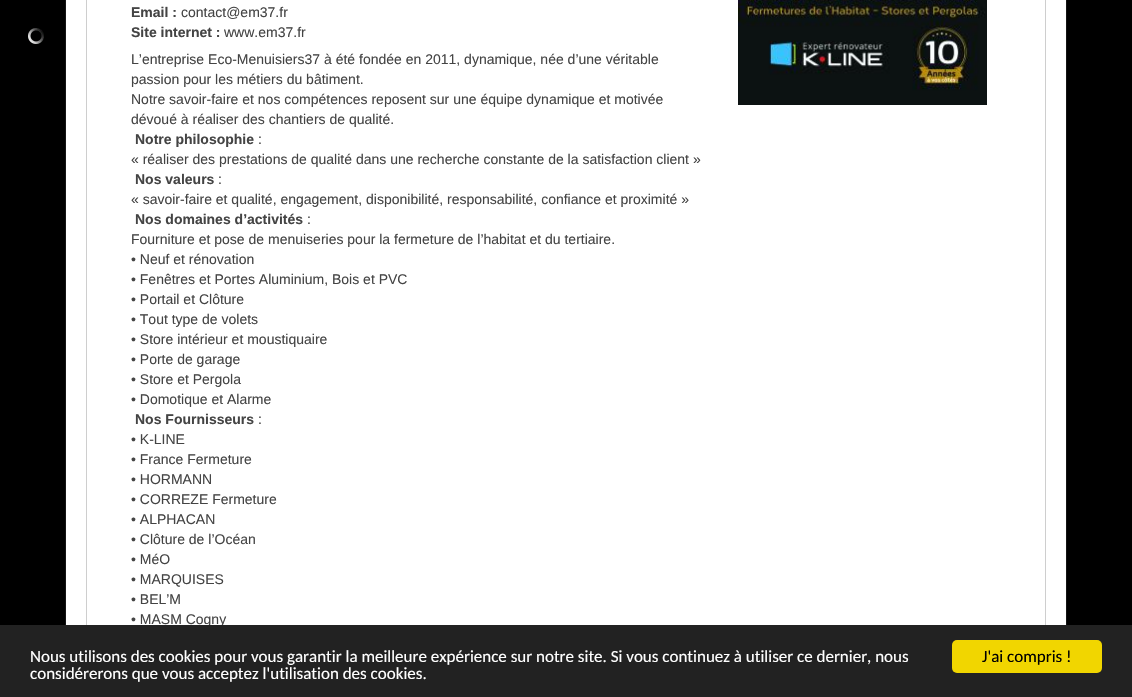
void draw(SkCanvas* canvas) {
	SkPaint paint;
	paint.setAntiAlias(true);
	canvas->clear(0xff000000);
	canvas->drawImageRect(SkImages::DeferredFromEncodedData(SkData::MakeFromFileName("img1.png")), SkRect::MakeXYWH(28, 28, 16, 16), SkSamplingOptions());
	paint.setColor(0xffffffff);
	canvas->drawRect(SkRect::MakeXYWH(66, 0, 1000, 625), paint);
	paint.setColor(0xff151515);
	canvas->drawRect(SkRect::MakeXYWH(1066, 0, 1, 625), paint);
	canvas->drawRect(SkRect::MakeXYWH(65, 0, 1, 625), paint);
	paint.setStroke(true);
	paint.setStrokeWidth(1);
	paint.setColor(0xffcecece);
	canvas->drawRect(SkRect::MakeXYWH(86.5, -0.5, 959, 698), paint);
	SkFont f1(fontMgr->matchFamilyStyle("Liberation Sans", SkFontStyle::Bold()), 14);
	f1.setSubpixel(true);
	paint.setStroke(false);
	paint.setColor(0xff444444);
	canvas->drawString("Email :", 131, 17, f1, paint);
	SkFont f2(fontMgr->matchFamilyStyle("Liberation Sans", SkFontStyle::Normal()), 14);
	f2.setSubpixel(true);
	canvas->drawString("contact@em37.fr", 181, 17, f2, paint);
	canvas->drawString("Site internet :", 131, 37, f1, paint);
	canvas->drawString("www.em37.fr", 224, 37, f2, paint);
	canvas->drawString("L’entreprise Eco-Menuisiers37 à été fondée en 2011, dynamique, née d’une véritable", 131, 64, f2, paint);
	canvas->drawString("passion pour les métiers du bâtiment.", 131, 84, f2, paint);
	canvas->drawString("Notre savoir-faire et nos compétences reposent sur une équipe dynamique et motivée", 131, 104, f2, paint);
	canvas->drawString("dévoué à réaliser des chantiers de qualité.", 131, 124, f2, paint);
	canvas->drawString("Notre philosophie", 135, 144, f1, paint);
	canvas->drawString(":", 258, 144, f2, paint);
	canvas->drawString("« réaliser des prestations de qualité dans une recherche constante de la satisfaction client »", 131, 164, f2, paint);
	canvas->drawString("Nos valeurs", 135, 184, f1, paint);
	canvas->drawString(":", 218, 184, f2, paint);
	canvas->drawString("« savoir-faire et qualité, engagement, disponibilité, responsabilité, confiance et proximité »", 131, 204, f2, paint);
	canvas->drawString("Nos domaines d’activités", 135, 224, f1, paint);
	canvas->drawString(":", 307, 224, f2, paint);
	canvas->drawString("Fourniture et pose de menuiseries pour la fermeture de l’habitat et du tertiaire.", 131, 244, f2, paint);
	canvas->drawString("• Neuf et rénovation", 131, 264, f2, paint);
	canvas->drawString("• Fenêtres et Portes Aluminium, Bois et PVC", 131, 284, f2, paint);
	canvas->drawString("• Portail et Clôture", 131, 304, f2, paint);
	canvas->drawString("• Tout type de volets", 131, 324, f2, paint);
	canvas->drawString("• Store intérieur et moustiquaire", 131, 344, f2, paint);
	canvas->drawString("• Porte de garage", 131, 364, f2, paint);
	canvas->drawString("• Store et Pergola", 131, 384, f2, paint);
	canvas->drawString("• Domotique et Alarme", 131, 404, f2, paint);
	canvas->drawString("Nos Fournisseurs", 135, 424, f1, paint);
	canvas->drawString(":", 258, 424, f2, paint);
	canvas->drawString("• K-LINE", 131, 444, f2, paint);
	canvas->drawString("• France Fermeture", 131, 464, f2, paint);
	canvas->drawString("• HORMANN", 131, 484, f2, paint);
	canvas->drawString("• CORREZE Fermeture", 131, 504, f2, paint);
	canvas->drawString("• ALPHACAN", 131, 524, f2, paint);
	canvas->drawString("• Clôture de l’Océan", 131, 544, f2, paint);
	canvas->drawString("• MéO", 131, 564, f2, paint);
	canvas->drawString("• MARQUISES", 131, 584, f2, paint);
	canvas->drawString("• BEL’M", 131, 604, f2, paint);
	canvas->drawString("• MASM Cogny", 131, 624, f2, paint);
	canvas->drawImageRect(SkImages::DeferredFromEncodedData(SkData::MakeFromFileName("img2.png")), SkRect::MakeXYWH(738, 0, 249, 105), SkSamplingOptions());
	paint.setColor(0xff222222);
	canvas->drawRect(SkRect::MakeXYWH(0, 625, 1132, 72), paint);
	SkFont f3(fontMgr->matchFamilyStyle("Carlito", SkFontStyle::Normal()), 17);
	f3.setSubpixel(true);
	paint.setColor(0xffffffff);
	canvas->drawString("Nous utilisons des cookies pour vous garantir la meilleure expérience sur notre site. Si vous continuez à utiliser ce dernier, nous", 30, 662, f3, paint);
	canvas->drawString("considérerons que vous acceptez l'utilisation des cookies.", 30, 679, f3, paint);
	paint.setColor(0xfff1d600);
	canvas->drawRoundRect(SkRect::MakeXYWH(952, 640, 150, 33), 5, 5, paint);
	paint.setColor(0xff000000);
	canvas->drawString("J'ai compris !", 982, 662, f3, paint);
}
